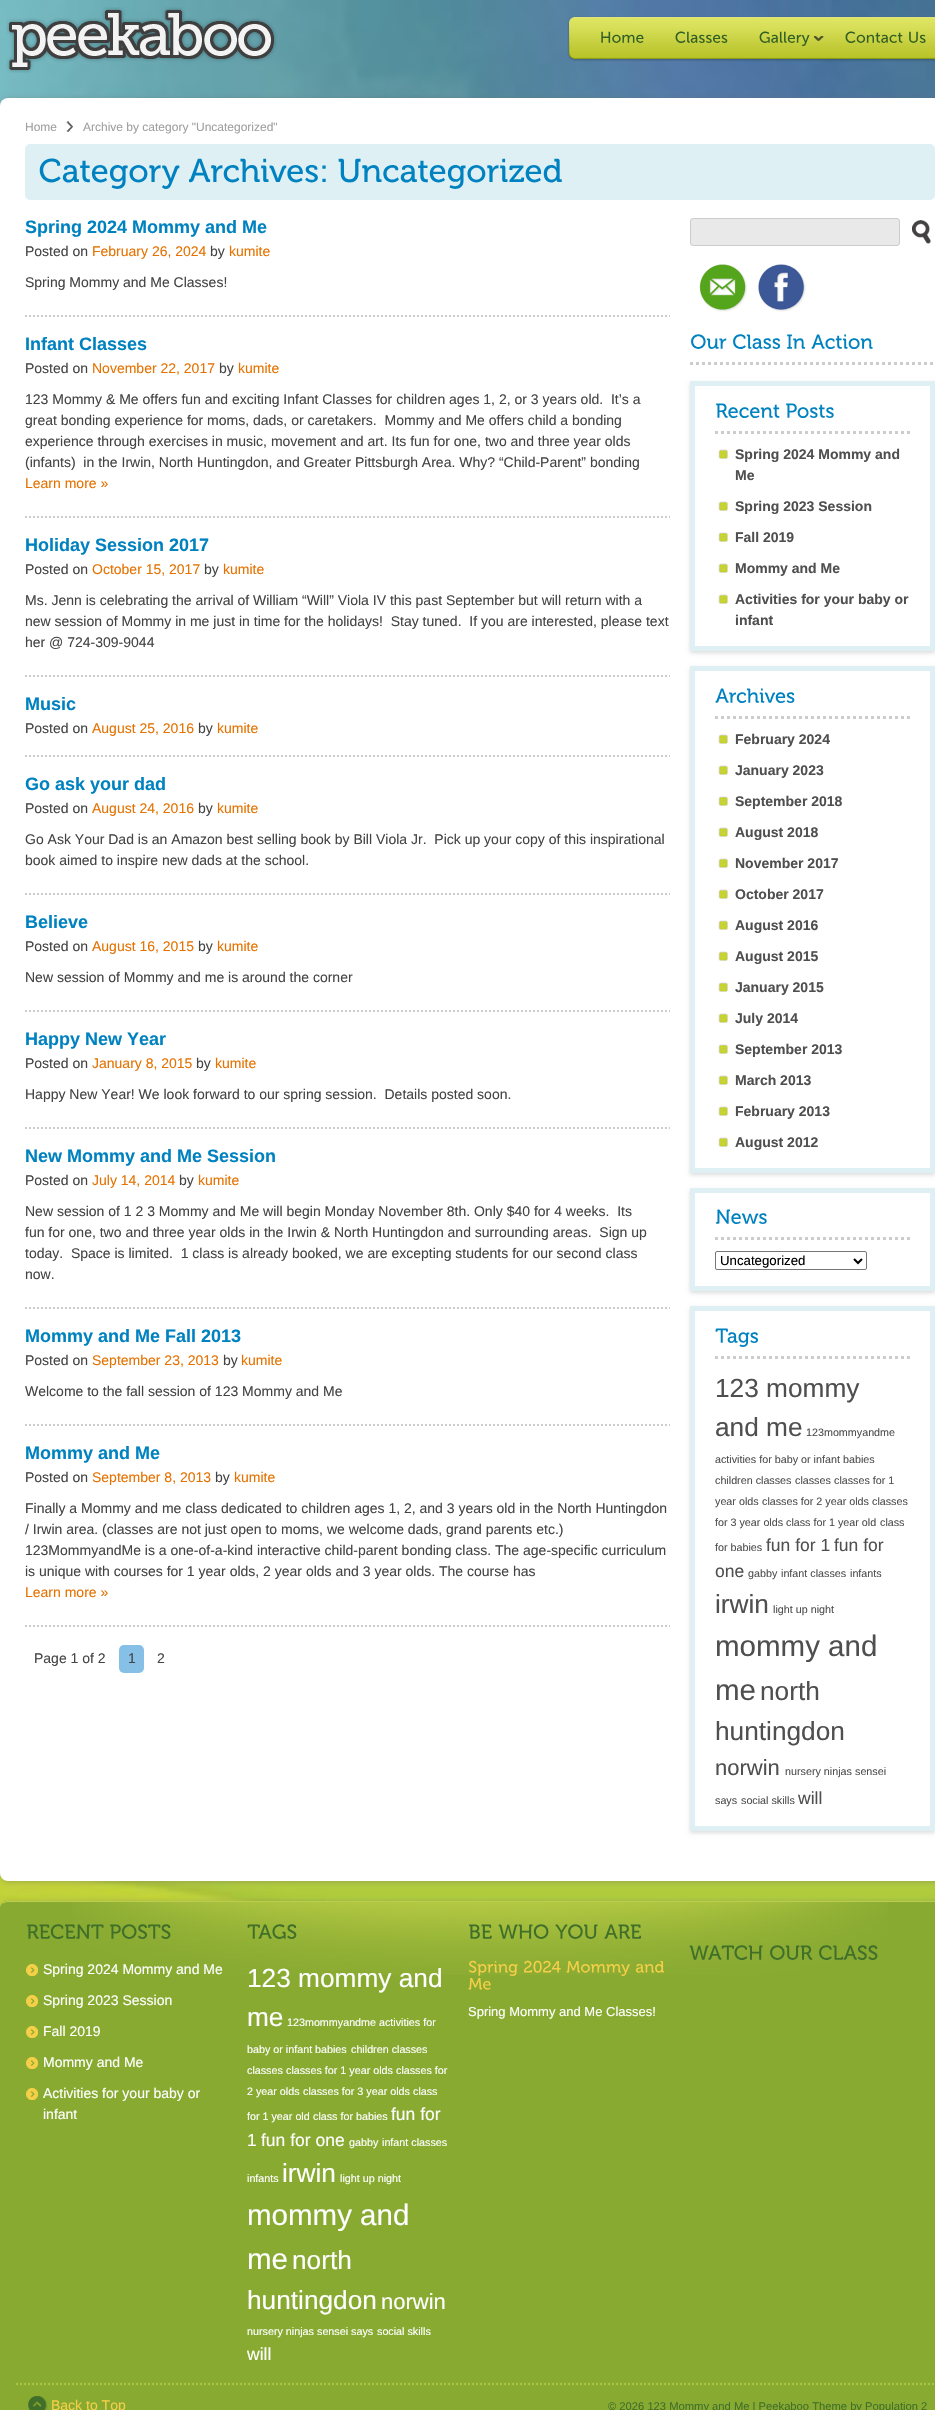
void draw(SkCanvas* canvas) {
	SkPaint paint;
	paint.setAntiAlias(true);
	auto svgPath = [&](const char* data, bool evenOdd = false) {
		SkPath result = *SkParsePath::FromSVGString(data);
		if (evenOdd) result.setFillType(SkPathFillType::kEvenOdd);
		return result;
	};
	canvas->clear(0xffffffff);
	canvas->drawImageRect(SkImages::DeferredFromEncodedData(SkData::MakeFromFileName("img1.png")), SkRect::MakeXYWH(0, 0, 935, 1909), SkSamplingOptions());
	canvas->drawImageRect(SkImages::DeferredFromEncodedData(SkData::MakeFromFileName("img2.png")), SkRect::MakeXYWH(6, 7, 271, 66), SkSamplingOptions());
	canvas->drawImageRect(SkImages::DeferredFromEncodedData(SkData::MakeFromFileName("img3.png")), SkRect::MakeXYWH(567, 16, 18, 46), SkSamplingOptions());
	canvas->drawImageRect(SkImages::DeferredFromEncodedData(SkData::MakeFromFileName("img4.png")), SkRect::MakeXYWH(585, 16, 350, 46), SkSamplingOptions());
	canvas->drawImageRect(SkImages::DeferredFromEncodedData(SkData::MakeFromFileName("img5.png")), SkRect::MakeXYWH(601, 31, 43, 12), SkSamplingOptions());
	canvas->drawImageRect(SkImages::DeferredFromEncodedData(SkData::MakeFromFileName("img6.png")), SkRect::MakeXYWH(675, 31, 53, 12), SkSamplingOptions());
	canvas->drawImageRect(SkImages::DeferredFromEncodedData(SkData::MakeFromFileName("img7.png")), SkRect::MakeXYWH(759, 31, 51, 15), SkSamplingOptions());
	canvas->drawImageRect(SkImages::DeferredFromEncodedData(SkData::MakeFromFileName("img8.png")), SkRect::MakeXYWH(814, 36, 10, 5), SkSamplingOptions());
	canvas->drawImageRect(SkImages::DeferredFromEncodedData(SkData::MakeFromFileName("img9.png")), SkRect::MakeXYWH(845, 31, 58, 12), SkSamplingOptions());
	canvas->drawImageRect(SkImages::DeferredFromEncodedData(SkData::MakeFromFileName("img10.png")), SkRect::MakeXYWH(909, 31, 17, 12), SkSamplingOptions());
	paint.setColor(0x66666666);
	paint.setMaskFilter(SkMaskFilter::MakeBlur(kNormal_SkBlurStyle, 3));
	canvas->drawRoundRect(SkRect::MakeXYWH(1, 99, 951, 1783), 8, 8, paint);
	paint.setMaskFilter(nullptr);
	paint.setColor(0xffffffff);
	canvas->drawRoundRect(SkRect::MakeXYWH(0, 98, 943, 1783), 8, 8, paint);
	SkFont f1(fontMgr->matchFamilyStyle("Liberation Sans", SkFontStyle::Normal()), 12);
	f1.setSubpixel(true);
	paint.setColor(0xff9f9f9f);
	canvas->drawString("Home", 25, 131, f1, paint);
	canvas->drawImageRect(SkImages::DeferredFromEncodedData(SkData::MakeFromFileName("img11.png")), SkRect::MakeXYWH(66, 121, 7, 11), SkSamplingOptions());
	canvas->drawString("Archive by category \"Uncategorized\"", 83, 131, f1, paint);
	paint.setColor(0xffdff0f5);
	canvas->drawRoundRect(SkRect::MakeXYWH(25, 144, 910, 56), 5, 5, paint);
	canvas->drawImageRect(SkImages::DeferredFromEncodedData(SkData::MakeFromFileName("img12.png")), SkRect::MakeXYWH(39, 158, 141, 31), SkSamplingOptions());
	canvas->drawImageRect(SkImages::DeferredFromEncodedData(SkData::MakeFromFileName("img13.png")), SkRect::MakeXYWH(189, 158, 137, 25), SkSamplingOptions());
	canvas->drawImageRect(SkImages::DeferredFromEncodedData(SkData::MakeFromFileName("img14.png")), SkRect::MakeXYWH(338, 158, 224, 31), SkSamplingOptions());
	SkFont f2(fontMgr->matchFamilyStyle("Liberation Sans", SkFontStyle::Bold()), 18);
	f2.setSubpixel(true);
	paint.setColor(0xff0082c0);
	canvas->drawString("Spring 2024 Mommy and Me", 25, 233, f2, paint);
	SkFont f3(fontMgr->matchFamilyStyle("Liberation Sans", SkFontStyle::Normal()), 14);
	f3.setSubpixel(true);
	paint.setColor(0xff444444);
	canvas->drawString("Posted on", 25, 256, f3, paint);
	paint.setColor(0xffe57200);
	canvas->drawString("February 26, 2024", 92, 256, f3, paint);
	paint.setColor(0xff444444);
	canvas->drawString("by", 210, 256, f3, paint);
	paint.setColor(0xffe57200);
	canvas->drawString("kumite", 229, 256, f3, paint);
	paint.setColor(0xff444444);
	canvas->drawString("Spring Mommy and Me Classes!", 25, 287, f3, paint);
	paint.setStroke(true);
	paint.setStrokeWidth(2);
	paint.setColor(0xffcccccc);
	paint.setPathEffect(SkDashPathEffect::Make({{2, 2}}, 0));
	canvas->drawPath(svgPath("M25 316H670"), paint);
	paint.setPathEffect(nullptr);
	paint.setStroke(false);
	paint.setColor(0xff0082c0);
	canvas->drawString("Infant Classes", 25, 350, f2, paint);
	paint.setColor(0xff444444);
	canvas->drawString("Posted on", 25, 373, f3, paint);
	paint.setColor(0xffe57200);
	canvas->drawString("November 22, 2017", 92, 373, f3, paint);
	paint.setColor(0xff444444);
	canvas->drawString("by", 219, 373, f3, paint);
	paint.setColor(0xffe57200);
	canvas->drawString("kumite", 238, 373, f3, paint);
	paint.setColor(0xff444444);
	canvas->drawString("123 Mommy & Me offers fun and exciting Infant Classes for children ages 1, 2, or 3 years old.  It’s a", 25, 404, f3, paint);
	canvas->drawString("great bonding experience for moms, dads, or caretakers.  Mommy and Me offers child a bonding", 25, 425, f3, paint);
	canvas->drawString("experience through exercises in music, movement and art. Its fun for one, two and three year olds", 25, 446, f3, paint);
	canvas->drawString("(infants)  in the Irwin, North Huntingdon, and Greater Pittsburgh Area. Why? “Child-Parent” bonding", 25, 467, f3, paint);
	paint.setColor(0xffe57200);
	canvas->drawString("Learn more »", 25, 488, f3, paint);
	paint.setStroke(true);
	paint.setColor(0xffcccccc);
	paint.setPathEffect(SkDashPathEffect::Make({{2, 2}}, 0));
	canvas->drawPath(svgPath("M25 517H670"), paint);
	paint.setPathEffect(nullptr);
	paint.setStroke(false);
	paint.setColor(0xff0082c0);
	canvas->drawString("Holiday Session 2017", 25, 551, f2, paint);
	paint.setColor(0xff444444);
	canvas->drawString("Posted on", 25, 574, f3, paint);
	paint.setColor(0xffe57200);
	canvas->drawString("October 15, 2017", 92, 574, f3, paint);
	paint.setColor(0xff444444);
	canvas->drawString("by", 204, 574, f3, paint);
	paint.setColor(0xffe57200);
	canvas->drawString("kumite", 223, 574, f3, paint);
	paint.setColor(0xff444444);
	canvas->drawString("Ms. Jenn is celebrating the arrival of William “Will” Viola IV this past September but will return with a", 25, 605, f3, paint);
	canvas->drawString("new session of Mommy in me just in time for the holidays!  Stay tuned.  If you are interested, please text", 25, 626, f3, paint);
	canvas->drawString("her @ 724-309-9044", 25, 647, f3, paint);
	paint.setStroke(true);
	paint.setColor(0xffcccccc);
	paint.setPathEffect(SkDashPathEffect::Make({{2, 2}}, 0));
	canvas->drawPath(svgPath("M25 676H670"), paint);
	paint.setPathEffect(nullptr);
	paint.setStroke(false);
	paint.setColor(0xff0082c0);
	canvas->drawString("Music", 25, 710, f2, paint);
	paint.setColor(0xff444444);
	canvas->drawString("Posted on", 25, 733, f3, paint);
	paint.setColor(0xffe57200);
	canvas->drawString("August 25, 2016", 92, 733, f3, paint);
	paint.setColor(0xff444444);
	canvas->drawString("by", 198, 733, f3, paint);
	paint.setColor(0xffe57200);
	canvas->drawString("kumite", 217, 733, f3, paint);
	paint.setStroke(true);
	paint.setColor(0xffcccccc);
	paint.setPathEffect(SkDashPathEffect::Make({{2, 2}}, 0));
	canvas->drawPath(svgPath("M25 756H670"), paint);
	paint.setPathEffect(nullptr);
	paint.setStroke(false);
	paint.setColor(0xff0082c0);
	canvas->drawString("Go ask your dad", 25, 790, f2, paint);
	paint.setColor(0xff444444);
	canvas->drawString("Posted on", 25, 813, f3, paint);
	paint.setColor(0xffe57200);
	canvas->drawString("August 24, 2016", 92, 813, f3, paint);
	paint.setColor(0xff444444);
	canvas->drawString("by", 198, 813, f3, paint);
	paint.setColor(0xffe57200);
	canvas->drawString("kumite", 217, 813, f3, paint);
	paint.setColor(0xff444444);
	canvas->drawString("Go Ask Your Dad is an Amazon best selling book by Bill Viola Jr.  Pick up your copy of this inspirational", 25, 844, f3, paint);
	canvas->drawString("book aimed to inspire new dads at the school.", 25, 865, f3, paint);
	paint.setStroke(true);
	paint.setColor(0xffcccccc);
	paint.setPathEffect(SkDashPathEffect::Make({{2, 2}}, 0));
	canvas->drawPath(svgPath("M25 894H670"), paint);
	paint.setPathEffect(nullptr);
	paint.setStroke(false);
	paint.setColor(0xff0082c0);
	canvas->drawString("Believe", 25, 928, f2, paint);
	paint.setColor(0xff444444);
	canvas->drawString("Posted on", 25, 951, f3, paint);
	paint.setColor(0xffe57200);
	canvas->drawString("August 16, 2015", 92, 951, f3, paint);
	paint.setColor(0xff444444);
	canvas->drawString("by", 198, 951, f3, paint);
	paint.setColor(0xffe57200);
	canvas->drawString("kumite", 217, 951, f3, paint);
	paint.setColor(0xff444444);
	canvas->drawString("New session of Mommy and me is around the corner", 25, 982, f3, paint);
	paint.setStroke(true);
	paint.setColor(0xffcccccc);
	paint.setPathEffect(SkDashPathEffect::Make({{2, 2}}, 0));
	canvas->drawPath(svgPath("M25 1011H670"), paint);
	paint.setPathEffect(nullptr);
	paint.setStroke(false);
	paint.setColor(0xff0082c0);
	canvas->drawString("Happy New Year", 25, 1045, f2, paint);
	paint.setColor(0xff444444);
	canvas->drawString("Posted on", 25, 1068, f3, paint);
	paint.setColor(0xffe57200);
	canvas->drawString("January 8, 2015", 92, 1068, f3, paint);
	paint.setColor(0xff444444);
	canvas->drawString("by", 196, 1068, f3, paint);
	paint.setColor(0xffe57200);
	canvas->drawString("kumite", 215, 1068, f3, paint);
	paint.setColor(0xff444444);
	canvas->drawString("Happy New Year! We look forward to our spring session.  Details posted soon.", 25, 1099, f3, paint);
	paint.setStroke(true);
	paint.setColor(0xffcccccc);
	paint.setPathEffect(SkDashPathEffect::Make({{2, 2}}, 0));
	canvas->drawPath(svgPath("M25 1128H670"), paint);
	paint.setPathEffect(nullptr);
	paint.setStroke(false);
	paint.setColor(0xff0082c0);
	canvas->drawString("New Mommy and Me Session", 25, 1162, f2, paint);
	paint.setColor(0xff444444);
	canvas->drawString("Posted on", 25, 1185, f3, paint);
	paint.setColor(0xffe57200);
	canvas->drawString("July 14, 2014", 92, 1185, f3, paint);
	paint.setColor(0xff444444);
	canvas->drawString("by", 179, 1185, f3, paint);
	paint.setColor(0xffe57200);
	canvas->drawString("kumite", 198, 1185, f3, paint);
	paint.setColor(0xff444444);
	canvas->drawString("New session of 1 2 3 Mommy and Me will begin Monday November 8th. Only $40 for 4 weeks.  Its", 25, 1216, f3, paint);
	canvas->drawString("fun for one, two and three year olds in the Irwin & North Huntingdon and surrounding areas.  Sign up", 25, 1237, f3, paint);
	canvas->drawString("today.  Space is limited.  1 class is already booked, we are excepting students for our second class", 25, 1258, f3, paint);
	canvas->drawString("now.", 25, 1279, f3, paint);
	paint.setStroke(true);
	paint.setColor(0xffcccccc);
	paint.setPathEffect(SkDashPathEffect::Make({{2, 2}}, 0));
	canvas->drawPath(svgPath("M25 1308H670"), paint);
	paint.setPathEffect(nullptr);
	paint.setStroke(false);
	paint.setColor(0xff0082c0);
	canvas->drawString("Mommy and Me Fall 2013", 25, 1342, f2, paint);
	paint.setColor(0xff444444);
	canvas->drawString("Posted on", 25, 1365, f3, paint);
	paint.setColor(0xffe57200);
	canvas->drawString("September 23, 2013", 92, 1365, f3, paint);
	paint.setColor(0xff444444);
	canvas->drawString("by", 223, 1365, f3, paint);
	paint.setColor(0xffe57200);
	canvas->drawString("kumite", 241, 1365, f3, paint);
	paint.setColor(0xff444444);
	canvas->drawString("Welcome to the fall session of 123 Mommy and Me", 25, 1396, f3, paint);
	paint.setStroke(true);
	paint.setColor(0xffcccccc);
	paint.setPathEffect(SkDashPathEffect::Make({{2, 2}}, 0));
	canvas->drawPath(svgPath("M25 1425H670"), paint);
	paint.setPathEffect(nullptr);
	paint.setStroke(false);
	paint.setColor(0xff0082c0);
	canvas->drawString("Mommy and Me", 25, 1459, f2, paint);
	paint.setColor(0xff444444);
	canvas->drawString("Posted on", 25, 1482, f3, paint);
	paint.setColor(0xffe57200);
	canvas->drawString("September 8, 2013", 92, 1482, f3, paint);
	paint.setColor(0xff444444);
	canvas->drawString("by", 215, 1482, f3, paint);
	paint.setColor(0xffe57200);
	canvas->drawString("kumite", 234, 1482, f3, paint);
	paint.setColor(0xff444444);
	canvas->drawString("Finally a Mommy and me class dedicated to children ages 1, 2, and 3 years old in the North Huntingdon", 25, 1513, f3, paint);
	canvas->drawString("/ Irwin area. (classes are not just open to moms, we welcome dads, grand parents etc.)", 25, 1534, f3, paint);
	canvas->drawString("123MommyandMe is a one-of-a-kind interactive child-parent bonding class. The age-specific curriculum", 25, 1555, f3, paint);
	canvas->drawString("is unique with courses for 1 year olds, 2 year olds and 3 year olds. The course has", 25, 1576, f3, paint);
	paint.setColor(0xffe57200);
	canvas->drawString("Learn more »", 25, 1597, f3, paint);
	paint.setStroke(true);
	paint.setColor(0xffcccccc);
	paint.setPathEffect(SkDashPathEffect::Make({{2, 2}}, 0));
	canvas->drawPath(svgPath("M25 1626H670"), paint);
	paint.setPathEffect(nullptr);
	paint.setStroke(false);
	paint.setColor(0xff444444);
	canvas->drawString("Page 1 of 2", 34, 1663, f3, paint);
	paint.setColor(0xff87c0e6);
	canvas->drawRoundRect(SkRect::MakeXYWH(119, 1645, 25, 28), 5, 5, paint);
	paint.setColor(0xff444444);
	canvas->drawString("1", 128, 1663, f3, paint);
	canvas->drawString("2", 157, 1663, f3, paint);
	paint.setColor(0xffe9e9e9);
	canvas->drawRoundRect(SkRect::MakeXYWH(690.5, 218.5, 209, 27), 2.5, 2.5, paint);
	paint.setStroke(true);
	paint.setStrokeWidth(1);
	paint.setColor(0xffcccccc);
	canvas->drawRoundRect(SkRect::MakeXYWH(690.5, 218.5, 209, 27), 2.5, 2.5, paint);
	canvas->drawImageRect(SkImages::DeferredFromEncodedData(SkData::MakeFromFileName("img15.png")), SkRect::MakeXYWH(912, 220, 19, 24), SkSamplingOptions());
	canvas->drawImageRect(SkImages::DeferredFromEncodedData(SkData::MakeFromFileName("img16.png")), SkRect::MakeXYWH(699, 264, 48, 48), SkSamplingOptions());
	canvas->drawImageRect(SkImages::DeferredFromEncodedData(SkData::MakeFromFileName("img17.png")), SkRect::MakeXYWH(758, 264, 48, 48), SkSamplingOptions());
	paint.setStrokeWidth(3);
	paint.setPathEffect(SkDashPathEffect::Make({{3, 3}}, 0));
	canvas->drawPath(svgPath("M690 363.5H935"), paint);
	paint.setPathEffect(nullptr);
	canvas->drawImageRect(SkImages::DeferredFromEncodedData(SkData::MakeFromFileName("img18.png")), SkRect::MakeXYWH(691, 334, 36, 15), SkSamplingOptions());
	canvas->drawImageRect(SkImages::DeferredFromEncodedData(SkData::MakeFromFileName("img19.png")), SkRect::MakeXYWH(733, 334, 48, 15), SkSamplingOptions());
	canvas->drawImageRect(SkImages::DeferredFromEncodedData(SkData::MakeFromFileName("img20.png")), SkRect::MakeXYWH(787, 334, 18, 15), SkSamplingOptions());
	canvas->drawImageRect(SkImages::DeferredFromEncodedData(SkData::MakeFromFileName("img21.png")), SkRect::MakeXYWH(811, 334, 62, 15), SkSamplingOptions());
	canvas->save();
	canvas->clipPath(svgPath("M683 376H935V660H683ZM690 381H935V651H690Z", true), true);
	paint.setStroke(false);
	paint.setColor(0xffdddddd);
	paint.setMaskFilter(SkMaskFilter::MakeBlur(kNormal_SkBlurStyle, 2));
	canvas->drawRect(SkRect::MakeXYWH(690, 383, 245, 270), paint);
	paint.setMaskFilter(nullptr);
	canvas->restore();
	paint.setStroke(true);
	paint.setStrokeWidth(5);
	paint.setColor(0xffdff0f5);
	canvas->drawRect(SkRect::MakeXYWH(692.5, 383.5, 240, 265), paint);
	paint.setStrokeWidth(3);
	paint.setColor(0xffcccccc);
	paint.setPathEffect(SkDashPathEffect::Make({{3, 3}}, 0));
	canvas->drawPath(svgPath("M715 432.5H910"), paint);
	paint.setPathEffect(nullptr);
	canvas->drawImageRect(SkImages::DeferredFromEncodedData(SkData::MakeFromFileName("img22.png")), SkRect::MakeXYWH(716, 403, 64, 15), SkSamplingOptions());
	canvas->drawImageRect(SkImages::DeferredFromEncodedData(SkData::MakeFromFileName("img23.png")), SkRect::MakeXYWH(786, 403, 48, 15), SkSamplingOptions());
	canvas->drawImageRect(SkImages::DeferredFromEncodedData(SkData::MakeFromFileName("img24.png")), SkRect::MakeXYWH(718, 449, 10, 10), SkSamplingOptions());
	SkFont f4(fontMgr->matchFamilyStyle("Liberation Sans", SkFontStyle::Bold()), 14);
	f4.setSubpixel(true);
	paint.setStroke(false);
	paint.setColor(0xff4f4f4f);
	canvas->drawString("Spring 2024 Mommy and", 735, 459, f4, paint);
	canvas->drawString("Me", 735, 480, f4, paint);
	canvas->drawImageRect(SkImages::DeferredFromEncodedData(SkData::MakeFromFileName("img24.png")), SkRect::MakeXYWH(718, 501, 10, 10), SkSamplingOptions());
	canvas->drawString("Spring 2023 Session", 735, 511, f4, paint);
	canvas->drawImageRect(SkImages::DeferredFromEncodedData(SkData::MakeFromFileName("img24.png")), SkRect::MakeXYWH(718, 532, 10, 10), SkSamplingOptions());
	canvas->drawString("Fall 2019", 735, 542, f4, paint);
	canvas->drawImageRect(SkImages::DeferredFromEncodedData(SkData::MakeFromFileName("img24.png")), SkRect::MakeXYWH(718, 563, 10, 10), SkSamplingOptions());
	canvas->drawString("Mommy and Me", 735, 573, f4, paint);
	canvas->drawImageRect(SkImages::DeferredFromEncodedData(SkData::MakeFromFileName("img24.png")), SkRect::MakeXYWH(718, 594, 10, 10), SkSamplingOptions());
	canvas->drawString("Activities for your baby or", 735, 604, f4, paint);
	canvas->drawString("infant", 735, 625, f4, paint);
	canvas->save();
	canvas->clipPath(svgPath("M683 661H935V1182H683ZM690 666H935V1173H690Z", true), true);
	paint.setColor(0xffdddddd);
	paint.setMaskFilter(SkMaskFilter::MakeBlur(kNormal_SkBlurStyle, 2));
	canvas->drawRect(SkRect::MakeXYWH(690, 668, 245, 507), paint);
	paint.setMaskFilter(nullptr);
	canvas->restore();
	paint.setStroke(true);
	paint.setStrokeWidth(5);
	paint.setColor(0xffdff0f5);
	canvas->drawRect(SkRect::MakeXYWH(692.5, 668.5, 240, 502), paint);
	paint.setStrokeWidth(3);
	paint.setColor(0xffcccccc);
	paint.setPathEffect(SkDashPathEffect::Make({{3, 3}}, 0));
	canvas->drawPath(svgPath("M715 717.5H910"), paint);
	paint.setPathEffect(nullptr);
	canvas->drawImageRect(SkImages::DeferredFromEncodedData(SkData::MakeFromFileName("img25.png")), SkRect::MakeXYWH(715, 688, 80, 15), SkSamplingOptions());
	canvas->drawImageRect(SkImages::DeferredFromEncodedData(SkData::MakeFromFileName("img24.png")), SkRect::MakeXYWH(718, 734, 10, 10), SkSamplingOptions());
	paint.setStroke(false);
	paint.setColor(0xff4f4f4f);
	canvas->drawString("February 2024", 735, 744, f4, paint);
	canvas->drawImageRect(SkImages::DeferredFromEncodedData(SkData::MakeFromFileName("img24.png")), SkRect::MakeXYWH(718, 765, 10, 10), SkSamplingOptions());
	canvas->drawString("January 2023", 735, 775, f4, paint);
	canvas->drawImageRect(SkImages::DeferredFromEncodedData(SkData::MakeFromFileName("img24.png")), SkRect::MakeXYWH(718, 796, 10, 10), SkSamplingOptions());
	canvas->drawString("September 2018", 735, 806, f4, paint);
	canvas->drawImageRect(SkImages::DeferredFromEncodedData(SkData::MakeFromFileName("img24.png")), SkRect::MakeXYWH(718, 827, 10, 10), SkSamplingOptions());
	canvas->drawString("August 2018", 735, 837, f4, paint);
	canvas->drawImageRect(SkImages::DeferredFromEncodedData(SkData::MakeFromFileName("img24.png")), SkRect::MakeXYWH(718, 858, 10, 10), SkSamplingOptions());
	canvas->drawString("November 2017", 735, 868, f4, paint);
	canvas->drawImageRect(SkImages::DeferredFromEncodedData(SkData::MakeFromFileName("img24.png")), SkRect::MakeXYWH(718, 889, 10, 10), SkSamplingOptions());
	canvas->drawString("October 2017", 735, 899, f4, paint);
	canvas->drawImageRect(SkImages::DeferredFromEncodedData(SkData::MakeFromFileName("img24.png")), SkRect::MakeXYWH(718, 920, 10, 10), SkSamplingOptions());
	canvas->drawString("August 2016", 735, 930, f4, paint);
	canvas->drawImageRect(SkImages::DeferredFromEncodedData(SkData::MakeFromFileName("img24.png")), SkRect::MakeXYWH(718, 951, 10, 10), SkSamplingOptions());
	canvas->drawString("August 2015", 735, 961, f4, paint);
	canvas->drawImageRect(SkImages::DeferredFromEncodedData(SkData::MakeFromFileName("img24.png")), SkRect::MakeXYWH(718, 982, 10, 10), SkSamplingOptions());
	canvas->drawString("January 2015", 735, 992, f4, paint);
	canvas->drawImageRect(SkImages::DeferredFromEncodedData(SkData::MakeFromFileName("img24.png")), SkRect::MakeXYWH(718, 1013, 10, 10), SkSamplingOptions());
	canvas->drawString("July 2014", 735, 1023, f4, paint);
	canvas->drawImageRect(SkImages::DeferredFromEncodedData(SkData::MakeFromFileName("img24.png")), SkRect::MakeXYWH(718, 1044, 10, 10), SkSamplingOptions());
	canvas->drawString("September 2013", 735, 1054, f4, paint);
	canvas->drawImageRect(SkImages::DeferredFromEncodedData(SkData::MakeFromFileName("img24.png")), SkRect::MakeXYWH(718, 1075, 10, 10), SkSamplingOptions());
	canvas->drawString("March 2013", 735, 1085, f4, paint);
	canvas->drawImageRect(SkImages::DeferredFromEncodedData(SkData::MakeFromFileName("img24.png")), SkRect::MakeXYWH(718, 1106, 10, 10), SkSamplingOptions());
	canvas->drawString("February 2013", 735, 1116, f4, paint);
	canvas->drawImageRect(SkImages::DeferredFromEncodedData(SkData::MakeFromFileName("img24.png")), SkRect::MakeXYWH(718, 1137, 10, 10), SkSamplingOptions());
	canvas->drawString("August 2012", 735, 1147, f4, paint);
	canvas->save();
	canvas->clipPath(svgPath("M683 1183H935V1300H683ZM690 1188H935V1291H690Z", true), true);
	paint.setColor(0xffdddddd);
	paint.setMaskFilter(SkMaskFilter::MakeBlur(kNormal_SkBlurStyle, 2));
	canvas->drawRect(SkRect::MakeXYWH(690, 1190, 245, 103), paint);
	paint.setMaskFilter(nullptr);
	canvas->restore();
	paint.setStroke(true);
	paint.setStrokeWidth(5);
	paint.setColor(0xffdff0f5);
	canvas->drawRect(SkRect::MakeXYWH(692.5, 1190.5, 240, 98), paint);
	paint.setStrokeWidth(3);
	paint.setColor(0xffcccccc);
	paint.setPathEffect(SkDashPathEffect::Make({{3, 3}}, 0));
	canvas->drawPath(svgPath("M715 1238.5H910"), paint);
	paint.setPathEffect(nullptr);
	canvas->drawImageRect(SkImages::DeferredFromEncodedData(SkData::MakeFromFileName("img26.png")), SkRect::MakeXYWH(716, 1209, 51, 15), SkSamplingOptions());
	paint.setStrokeWidth(1);
	paint.setColor(0xff767676);
	canvas->drawRoundRect(SkRect::MakeXYWH(715.5, 1251.5, 151, 18), 1.5, 1.5, paint);
	paint.setStrokeWidth(2);
	paint.setColor(0xff000000);
	canvas->drawPath(svgPath("M854 1259L858 1263L862 1259"), paint);
	SkFont f5(fontMgr->matchFamilyStyle("Liberation Sans", SkFontStyle::Normal()), 13.25);
	f5.setSubpixel(true);
	paint.setStroke(false);
	canvas->drawString("Uncategorized", 720, 1265, f5, paint);
	canvas->save();
	canvas->clipPath(svgPath("M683 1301H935V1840H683ZM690 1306H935V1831H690Z", true), true);
	paint.setColor(0xffdddddd);
	paint.setMaskFilter(SkMaskFilter::MakeBlur(kNormal_SkBlurStyle, 2));
	canvas->drawRect(SkRect::MakeXYWH(690, 1308, 245, 525), paint);
	paint.setMaskFilter(nullptr);
	canvas->restore();
	paint.setStroke(true);
	paint.setStrokeWidth(5);
	paint.setColor(0xffdff0f5);
	canvas->drawRect(SkRect::MakeXYWH(692.5, 1308.5, 240, 520), paint);
	paint.setStrokeWidth(3);
	paint.setColor(0xffcccccc);
	paint.setPathEffect(SkDashPathEffect::Make({{3, 3}}, 0));
	canvas->drawPath(svgPath("M715 1357.5H910"), paint);
	paint.setPathEffect(nullptr);
	canvas->drawImageRect(SkImages::DeferredFromEncodedData(SkData::MakeFromFileName("img27.png")), SkRect::MakeXYWH(715, 1328, 43, 19), SkSamplingOptions());
	SkFont f6(fontMgr->matchFamilyStyle("Liberation Sans", SkFontStyle::Normal()), 26.25);
	f6.setSubpixel(true);
	paint.setStroke(false);
	paint.setColor(0xff4f4f4f);
	canvas->drawString("123 mommy", 715, 1397, f6, paint);
	canvas->drawString("and me", 715, 1436, f6, paint);
	SkFont f7(fontMgr->matchFamilyStyle("Liberation Sans", SkFontStyle::Normal()), 10.75);
	f7.setSubpixel(true);
	canvas->drawString("123mommyandme", 806, 1436, f7, paint);
	canvas->drawString("activities for baby or infant", 715, 1463, f7, paint);
	canvas->drawString("babies", 843, 1463, f7, paint);
	canvas->drawString("children classes", 715, 1484, f7, paint);
	canvas->drawString("classes", 795, 1484, f7, paint);
	canvas->drawString("classes for 1", 834, 1484, f7, paint);
	canvas->drawString("year olds", 715, 1505, f7, paint);
	canvas->drawString("classes for 2 year olds", 762, 1505, f7, paint);
	canvas->drawString("classes", 872, 1505, f7, paint);
	canvas->drawString("for 3 year olds", 715, 1526, f7, paint);
	canvas->drawString("class for 1 year old", 786, 1526, f7, paint);
	canvas->drawString("class", 880, 1526, f7, paint);
	canvas->drawString("for babies", 715, 1551, f7, paint);
	SkFont f8(fontMgr->matchFamilyStyle("Liberation Sans", SkFontStyle::Normal()), 17.5);
	f8.setSubpixel(true);
	canvas->drawString("fun for 1", 766, 1551, f8, paint);
	canvas->drawString("fun for", 834, 1551, f8, paint);
	canvas->drawString("one", 715, 1577, f8, paint);
	canvas->drawString("gabby", 748, 1577, f7, paint);
	canvas->drawString("infant classes", 781, 1577, f7, paint);
	canvas->drawString("infants", 850, 1577, f7, paint);
	canvas->drawString("irwin", 715, 1613, f6, paint);
	canvas->drawString("light up night", 773, 1613, f7, paint);
	SkFont f9(fontMgr->matchFamilyStyle("Liberation Sans", SkFontStyle::Normal()), 29.5);
	f9.setSubpixel(true);
	canvas->drawString("mommy and", 715, 1656, f9, paint);
	canvas->drawString("me", 715, 1700, f9, paint);
	canvas->drawString("north", 760, 1700, f6, paint);
	canvas->drawString("huntingdon", 715, 1740, f6, paint);
	SkFont f10(fontMgr->matchFamilyStyle("Liberation Sans", SkFontStyle::Normal()), 22);
	f10.setSubpixel(true);
	canvas->drawString("norwin", 715, 1775, f10, paint);
	canvas->drawString("nursery ninjas", 785, 1775, f7, paint);
	canvas->drawString("sensei", 855, 1775, f7, paint);
	canvas->drawString("says", 715, 1804, f7, paint);
	canvas->drawString("social skills", 741, 1804, f7, paint);
	canvas->drawString("will", 798, 1804, f8, paint);
	paint.setColor(0x66666666);
	paint.setMaskFilter(SkMaskFilter::MakeBlur(kNormal_SkBlurStyle, 3));
	canvas->drawRoundRect(SkRect::MakeXYWH(1, 1902, 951, 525), 8, 8, paint);
	paint.setMaskFilter(nullptr);
	paint.setColor(0xff88aa31);
	canvas->drawRoundRect(SkRect::MakeXYWH(0, 1901, 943, 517), 8, 8, paint);
	canvas->drawImageRect(SkImages::DeferredFromEncodedData(SkData::MakeFromFileName("img28.png")), SkRect::MakeXYWH(72, 1902, 816, 73), SkSamplingOptions());
	paint.setStroke(true);
	paint.setStrokeWidth(1);
	paint.setColor(0xffbccf4d);
	canvas->drawPath(svgPath("M2.5 1903.5C4 1902.5 6 1901.5 8 1901.5H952C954 1901.5 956 1902.5 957.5 1903.5"), paint);
	paint.setColor(0xff88aa31);
	canvas->drawPath(svgPath("M2.5 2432.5C1.5 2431 .5 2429 .5 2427V1909C.5 1907 1.5 1905 2.5 1903.5"), paint);
	canvas->drawImageRect(SkImages::DeferredFromEncodedData(SkData::MakeFromFileName("img29.png")), SkRect::MakeXYWH(689, 1945, 74, 15), SkSamplingOptions());
	canvas->drawImageRect(SkImages::DeferredFromEncodedData(SkData::MakeFromFileName("img30.png")), SkRect::MakeXYWH(770, 1945, 43, 15), SkSamplingOptions());
	canvas->drawImageRect(SkImages::DeferredFromEncodedData(SkData::MakeFromFileName("img31.png")), SkRect::MakeXYWH(819, 1945, 59, 15), SkSamplingOptions());
	canvas->drawImageRect(SkImages::DeferredFromEncodedData(SkData::MakeFromFileName("img32.png")), SkRect::MakeXYWH(27, 1924, 77, 15), SkSamplingOptions());
	canvas->drawImageRect(SkImages::DeferredFromEncodedData(SkData::MakeFromFileName("img33.png")), SkRect::MakeXYWH(110, 1924, 61, 15), SkSamplingOptions());
	canvas->drawImageRect(SkImages::DeferredFromEncodedData(SkData::MakeFromFileName("img34.png")), SkRect::MakeXYWH(26, 1964, 12, 12), SkSamplingOptions());
	paint.setStroke(false);
	paint.setColor(0xffffffff);
	canvas->drawString("Spring 2024 Mommy and Me", 43, 1974, f3, paint);
	canvas->drawImageRect(SkImages::DeferredFromEncodedData(SkData::MakeFromFileName("img34.png")), SkRect::MakeXYWH(26, 1995, 12, 12), SkSamplingOptions());
	canvas->drawString("Spring 2023 Session", 43, 2005, f3, paint);
	canvas->drawImageRect(SkImages::DeferredFromEncodedData(SkData::MakeFromFileName("img34.png")), SkRect::MakeXYWH(26, 2026, 12, 12), SkSamplingOptions());
	canvas->drawString("Fall 2019", 43, 2036, f3, paint);
	canvas->drawImageRect(SkImages::DeferredFromEncodedData(SkData::MakeFromFileName("img34.png")), SkRect::MakeXYWH(26, 2057, 12, 12), SkSamplingOptions());
	canvas->drawString("Mommy and Me", 43, 2067, f3, paint);
	canvas->drawImageRect(SkImages::DeferredFromEncodedData(SkData::MakeFromFileName("img34.png")), SkRect::MakeXYWH(26, 2088, 12, 12), SkSamplingOptions());
	canvas->drawString("Activities for your baby or", 43, 2098, f3, paint);
	canvas->drawString("infant", 43, 2119, f3, paint);
	canvas->drawImageRect(SkImages::DeferredFromEncodedData(SkData::MakeFromFileName("img35.png")), SkRect::MakeXYWH(247, 1924, 50, 15), SkSamplingOptions());
	canvas->drawString("123 mommy and", 247, 1987, f6, paint);
	canvas->drawString("me", 247, 2026, f6, paint);
	canvas->drawString("123mommyandme", 287, 2026, f7, paint);
	canvas->drawString("activities for", 379, 2026, f7, paint);
	canvas->drawString("baby or infant", 247, 2053, f7, paint);
	canvas->drawString("babies", 315, 2053, f7, paint);
	canvas->drawString("children classes", 351, 2053, f7, paint);
	canvas->drawString("classes", 247, 2074, f7, paint);
	canvas->drawString("classes for 1 year olds", 286, 2074, f7, paint);
	canvas->drawString("classes for", 396, 2074, f7, paint);
	canvas->drawString("2 year olds", 247, 2095, f7, paint);
	canvas->drawString("classes for 3 year olds", 303, 2095, f7, paint);
	canvas->drawString("class", 413, 2095, f7, paint);
	canvas->drawString("for 1 year old", 247, 2120, f7, paint);
	canvas->drawString("class for babies", 313, 2120, f7, paint);
	canvas->drawString("fun for", 391, 2120, f8, paint);
	canvas->drawString("1", 247, 2146, f8, paint);
	canvas->drawString("fun for one", 261, 2146, f8, paint);
	canvas->drawString("gabby", 349, 2146, f7, paint);
	canvas->drawString("infant classes", 382, 2146, f7, paint);
	canvas->drawString("infants", 247, 2182, f7, paint);
	canvas->drawString("irwin", 282, 2182, f6, paint);
	canvas->drawString("light up night", 340, 2182, f7, paint);
	canvas->drawString("mommy and", 247, 2225, f9, paint);
	canvas->drawString("me", 247, 2269, f9, paint);
	canvas->drawString("north", 292, 2269, f6, paint);
	canvas->drawString("huntingdon", 247, 2309, f6, paint);
	canvas->drawString("norwin", 381, 2309, f10, paint);
	canvas->drawString("nursery ninjas", 247, 2335, f7, paint);
	canvas->drawString("sensei says", 317, 2335, f7, paint);
	canvas->drawString("social skills", 377, 2335, f7, paint);
	canvas->drawString("will", 247, 2360, f8, paint);
	canvas->drawImageRect(SkImages::DeferredFromEncodedData(SkData::MakeFromFileName("img36.png")), SkRect::MakeXYWH(469, 1924, 23, 15), SkSamplingOptions());
	canvas->drawImageRect(SkImages::DeferredFromEncodedData(SkData::MakeFromFileName("img37.png")), SkRect::MakeXYWH(498, 1924, 51, 15), SkSamplingOptions());
	canvas->drawImageRect(SkImages::DeferredFromEncodedData(SkData::MakeFromFileName("img38.png")), SkRect::MakeXYWH(555, 1924, 43, 15), SkSamplingOptions());
	canvas->drawImageRect(SkImages::DeferredFromEncodedData(SkData::MakeFromFileName("img39.png")), SkRect::MakeXYWH(604, 1924, 38, 15), SkSamplingOptions());
	canvas->drawImageRect(SkImages::DeferredFromEncodedData(SkData::MakeFromFileName("img40.png")), SkRect::MakeXYWH(469, 1960, 49, 16), SkSamplingOptions());
	canvas->drawImageRect(SkImages::DeferredFromEncodedData(SkData::MakeFromFileName("img41.png")), SkRect::MakeXYWH(524, 1960, 37, 13), SkSamplingOptions());
	canvas->drawImageRect(SkImages::DeferredFromEncodedData(SkData::MakeFromFileName("img42.png")), SkRect::MakeXYWH(566, 1961, 64, 15), SkSamplingOptions());
	canvas->drawImageRect(SkImages::DeferredFromEncodedData(SkData::MakeFromFileName("img43.png")), SkRect::MakeXYWH(635, 1961, 30, 12), SkSamplingOptions());
	canvas->drawImageRect(SkImages::DeferredFromEncodedData(SkData::MakeFromFileName("img44.png")), SkRect::MakeXYWH(468, 1978, 23, 12), SkSamplingOptions());
	SkFont f11(fontMgr->matchFamilyStyle("Liberation Sans", SkFontStyle::Normal()), 13);
	f11.setSubpixel(true);
	canvas->drawString("Spring Mommy and Me Classes!", 468, 2016, f11, paint);
	paint.setStroke(true);
	paint.setStrokeWidth(2);
	paint.setColor(0xffadc442);
	paint.setPathEffect(SkDashPathEffect::Make({{2, 2}}, 0));
	canvas->drawPath(svgPath("M16 2384H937"), paint);
	paint.setPathEffect(nullptr);
	canvas->drawImageRect(SkImages::DeferredFromEncodedData(SkData::MakeFromFileName("img45.png")), SkRect::MakeXYWH(28, 2396, 20, 14), SkSamplingOptions());
	paint.setStroke(false);
	paint.setColor(0xfff5cf47);
	canvas->drawString("Back to Top", 51, 2410, f3, paint);
	SkFont f12(fontMgr->matchFamilyStyle("Liberation Sans", SkFontStyle::Normal()), 11.2);
	f12.setSubpixel(true);
	paint.setColor(0xff406f29);
	canvas->drawString("© 2026 123 Mommy and Me | Peekaboo Theme by Population 2", 608, 2410, f12, paint);
}
